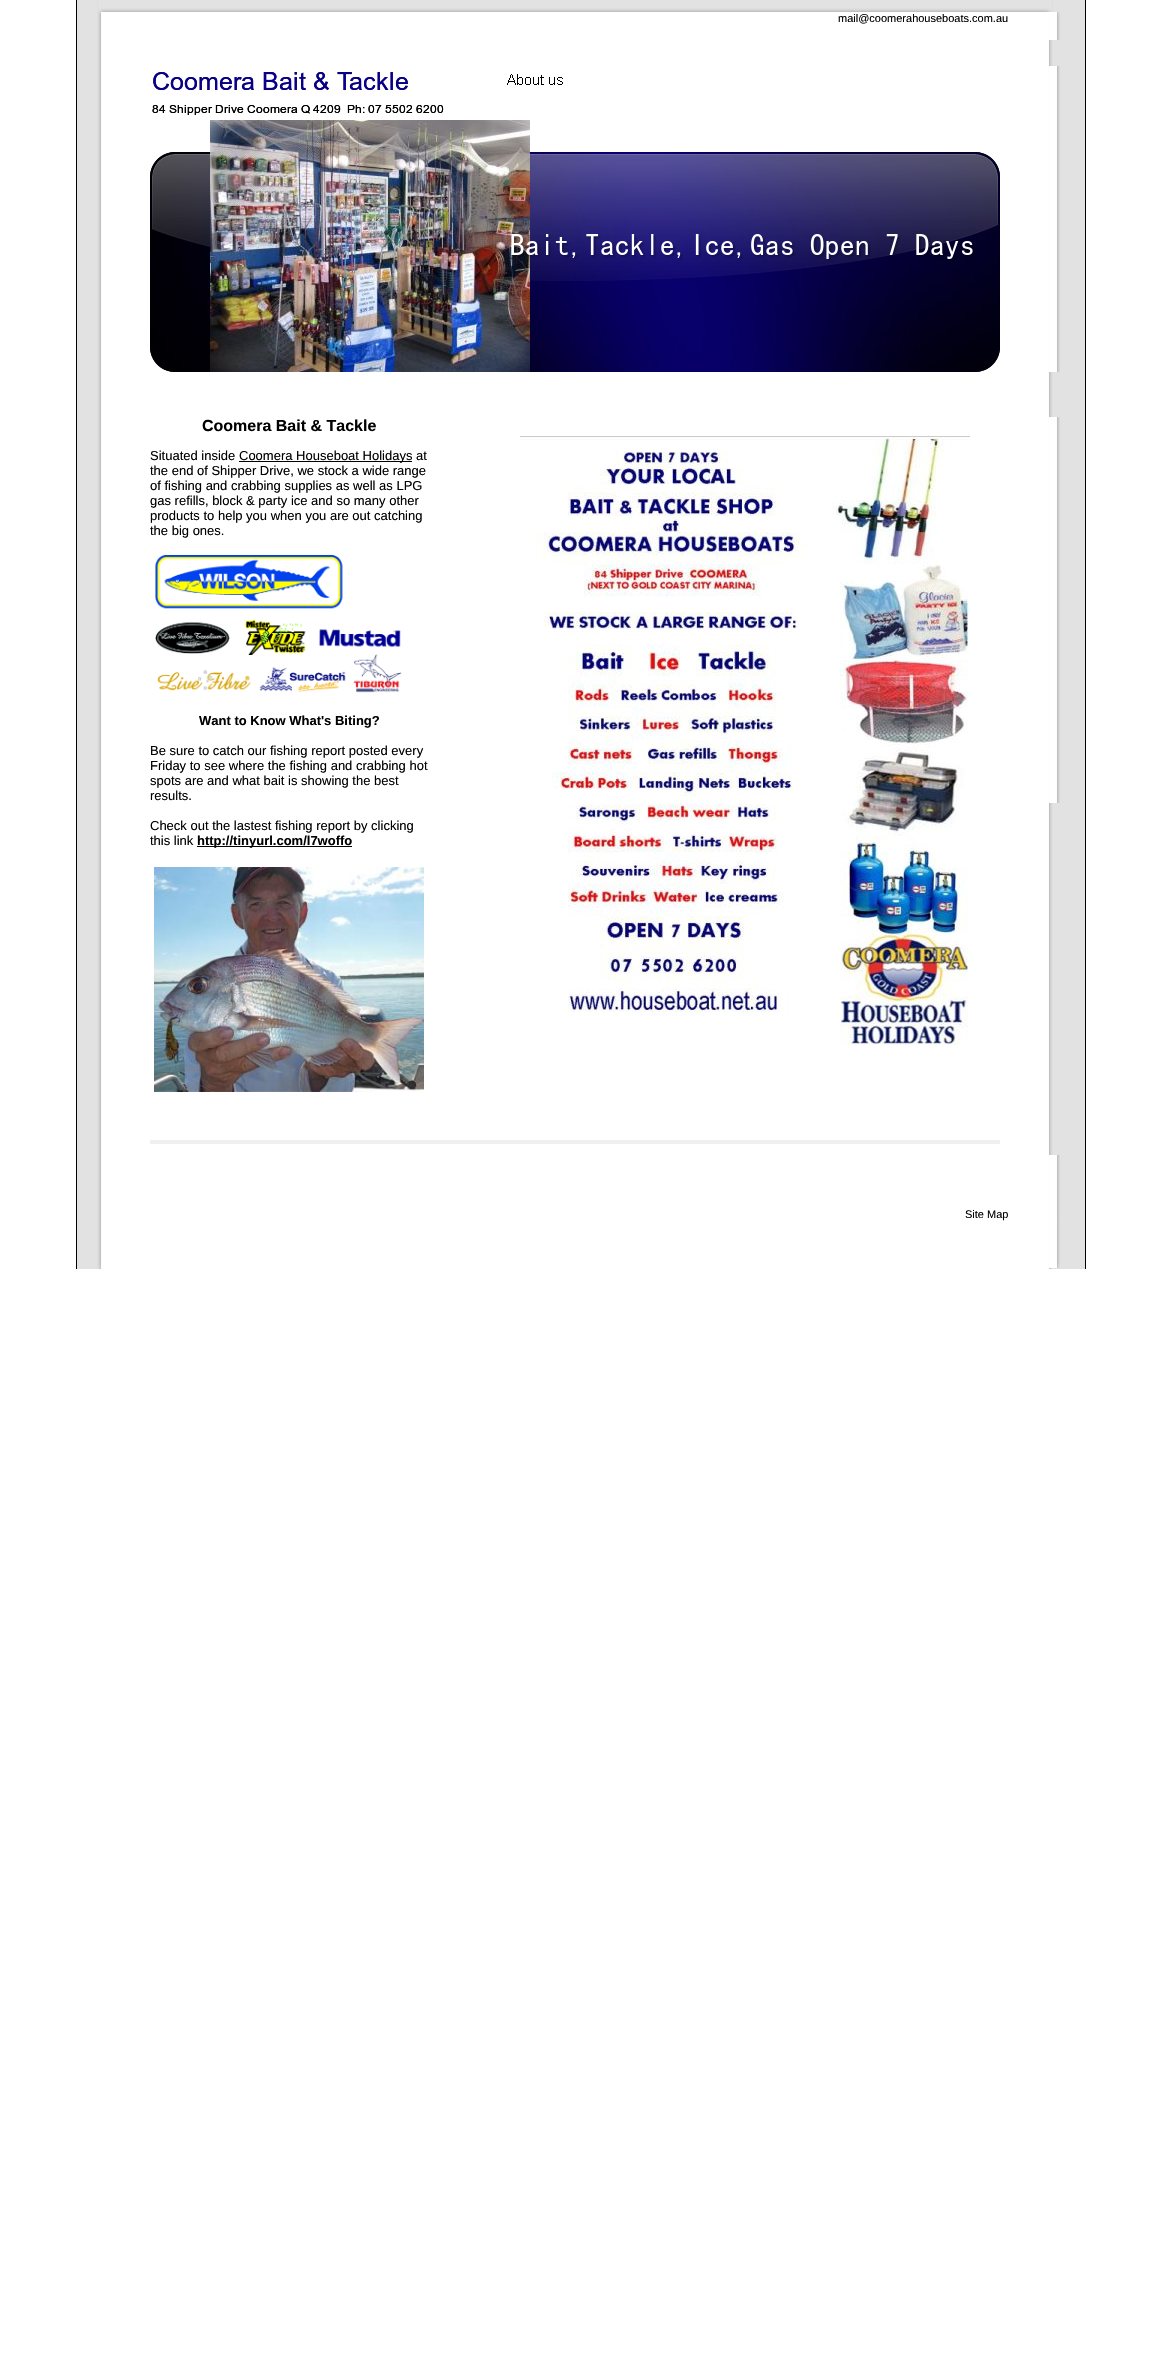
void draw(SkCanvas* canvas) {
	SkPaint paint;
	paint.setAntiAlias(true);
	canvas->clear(0xffffffff);
	canvas->drawImageRect(SkImages::DeferredFromEncodedData(SkData::MakeFromFileName("img1.png")), SkRect::MakeXYWH(77, 0, 1008, 1269), SkSamplingOptions());
	paint.setColor(0xff000000);
	canvas->drawRect(SkRect::MakeXYWH(1085, 0, 1, 1269), paint);
	canvas->drawRect(SkRect::MakeXYWH(76, 0, 1, 1269), paint);
	canvas->drawImageRect(SkImages::DeferredFromEncodedData(SkData::MakeFromFileName("img2.png")), SkRect::MakeXYWH(98, 0, 954, 12), SkSamplingOptions());
	canvas->drawImageRect(SkImages::DeferredFromEncodedData(SkData::MakeFromFileName("img3.png")), SkRect::MakeXYWH(99, 12, 2, 2), SkSamplingOptions());
	SkFont f1(fontMgr->matchFamilyStyle("Liberation Sans", SkFontStyle::Normal()), 11);
	f1.setSubpixel(true);
	canvas->drawString("mail@coomerahouseboats.com.au", 838, 22, f1, paint);
	canvas->drawImageRect(SkImages::DeferredFromEncodedData(SkData::MakeFromFileName("img4.png")), SkRect::MakeXYWH(1049, 12, 11, 28), SkSamplingOptions());
	canvas->drawImageRect(SkImages::DeferredFromEncodedData(SkData::MakeFromFileName("img5.png")), SkRect::MakeXYWH(153, 72, 255, 19), SkSamplingOptions());
	canvas->drawImageRect(SkImages::DeferredFromEncodedData(SkData::MakeFromFileName("img6.png")), SkRect::MakeXYWH(507, 74, 56, 11), SkSamplingOptions());
	canvas->drawImageRect(SkImages::DeferredFromEncodedData(SkData::MakeFromFileName("img7.png")), SkRect::MakeXYWH(1049, 66, 11, 33), SkSamplingOptions());
	canvas->drawImageRect(SkImages::DeferredFromEncodedData(SkData::MakeFromFileName("img8.png")), SkRect::MakeXYWH(152, 105, 292, 10), SkSamplingOptions());
	canvas->drawImageRect(SkImages::DeferredFromEncodedData(SkData::MakeFromFileName("img9.png")), SkRect::MakeXYWH(1049, 99, 11, 21), SkSamplingOptions());
	canvas->drawImageRect(SkImages::DeferredFromEncodedData(SkData::MakeFromFileName("img10.png")), SkRect::MakeXYWH(150, 120, 850, 252), SkSamplingOptions());
	canvas->drawImageRect(SkImages::DeferredFromEncodedData(SkData::MakeFromFileName("img11.png")), SkRect::MakeXYWH(1049, 120, 11, 252), SkSamplingOptions());
	SkFont f2(fontMgr->matchFamilyStyle("Liberation Sans", SkFontStyle::Bold()), 16);
	f2.setSubpixel(true);
	canvas->drawString("Coomera Bait & Tackle", 202, 431, f2, paint);
	SkFont f3(fontMgr->matchFamilyStyle("Liberation Sans", SkFontStyle::Normal()), 13);
	f3.setSubpixel(true);
	canvas->drawString("Situated inside", 150, 460, f3, paint);
	canvas->drawRect(SkRect::MakeXYWH(239, 461, 173, 1), paint);
	canvas->drawString("Coomera Houseboat Holidays at", 239, 460, f3, paint);
	canvas->drawString("the end of Shipper Drive, we stock a wide range", 150, 475, f3, paint);
	canvas->drawString("of fishing and crabbing supplies as well as LPG", 150, 490, f3, paint);
	canvas->drawString("gas refills, block & party ice and so many other", 150, 505, f3, paint);
	canvas->drawString("products to help you when you are out catching", 150, 520, f3, paint);
	canvas->drawString("the big ones.", 150, 535, f3, paint);
	canvas->drawImageRect(SkImages::DeferredFromEncodedData(SkData::MakeFromFileName("img12.png")), SkRect::MakeXYWH(155, 555, 247, 138), SkSamplingOptions());
	SkFont f4(fontMgr->matchFamilyStyle("Liberation Sans", SkFontStyle::Bold()), 13);
	f4.setSubpixel(true);
	canvas->drawString("Want to Know What's Biting?", 199, 725, f4, paint);
	canvas->drawString("Be sure to catch our fishing report posted every", 150, 755, f3, paint);
	canvas->drawString("Friday to see where the fishing and crabbing hot", 150, 770, f3, paint);
	canvas->drawString("spots are and what bait is showing the best", 150, 785, f3, paint);
	canvas->drawString("results.", 150, 800, f3, paint);
	canvas->drawString("Check out the lastest fishing report by clicking", 150, 830, f3, paint);
	canvas->drawString("this link", 150, 845, f3, paint);
	canvas->drawRect(SkRect::MakeXYWH(197, 846, 155, 1), paint);
	canvas->drawString("http://tinyurl.com/l7woffo", 197, 845, f4, paint);
	canvas->drawImageRect(SkImages::DeferredFromEncodedData(SkData::MakeFromFileName("img13.png")), SkRect::MakeXYWH(154, 867, 270, 225), SkSamplingOptions());
	canvas->drawImageRect(SkImages::DeferredFromEncodedData(SkData::MakeFromFileName("img14.png")), SkRect::MakeXYWH(520, 436, 450, 609), SkSamplingOptions());
	canvas->drawImageRect(SkImages::DeferredFromEncodedData(SkData::MakeFromFileName("img15.png")), SkRect::MakeXYWH(1049, 417, 11, 386), SkSamplingOptions());
	paint.setColor(0xfff0f0f0);
	canvas->drawRect(SkRect::MakeXYWH(150, 1140, 850, 4), paint);
	canvas->drawImageRect(SkImages::DeferredFromEncodedData(SkData::MakeFromFileName("img16.png")), SkRect::MakeXYWH(1049, 1155, 11, 29), SkSamplingOptions());
	canvas->drawImageRect(SkImages::DeferredFromEncodedData(SkData::MakeFromFileName("img17.png")), SkRect::MakeXYWH(1049, 1184, 11, 24), SkSamplingOptions());
	paint.setColor(0xff000000);
	canvas->drawString("Site Map", 965, 1218, f1, paint);
	canvas->drawImageRect(SkImages::DeferredFromEncodedData(SkData::MakeFromFileName("img18.png")), SkRect::MakeXYWH(1049, 1208, 11, 27), SkSamplingOptions());
	canvas->drawImageRect(SkImages::DeferredFromEncodedData(SkData::MakeFromFileName("img19.png")), SkRect::MakeXYWH(99, 1265, 2, 3), SkSamplingOptions());
	canvas->drawImageRect(SkImages::DeferredFromEncodedData(SkData::MakeFromFileName("img20.png")), SkRect::MakeXYWH(1049, 1235, 11, 33), SkSamplingOptions());
}
